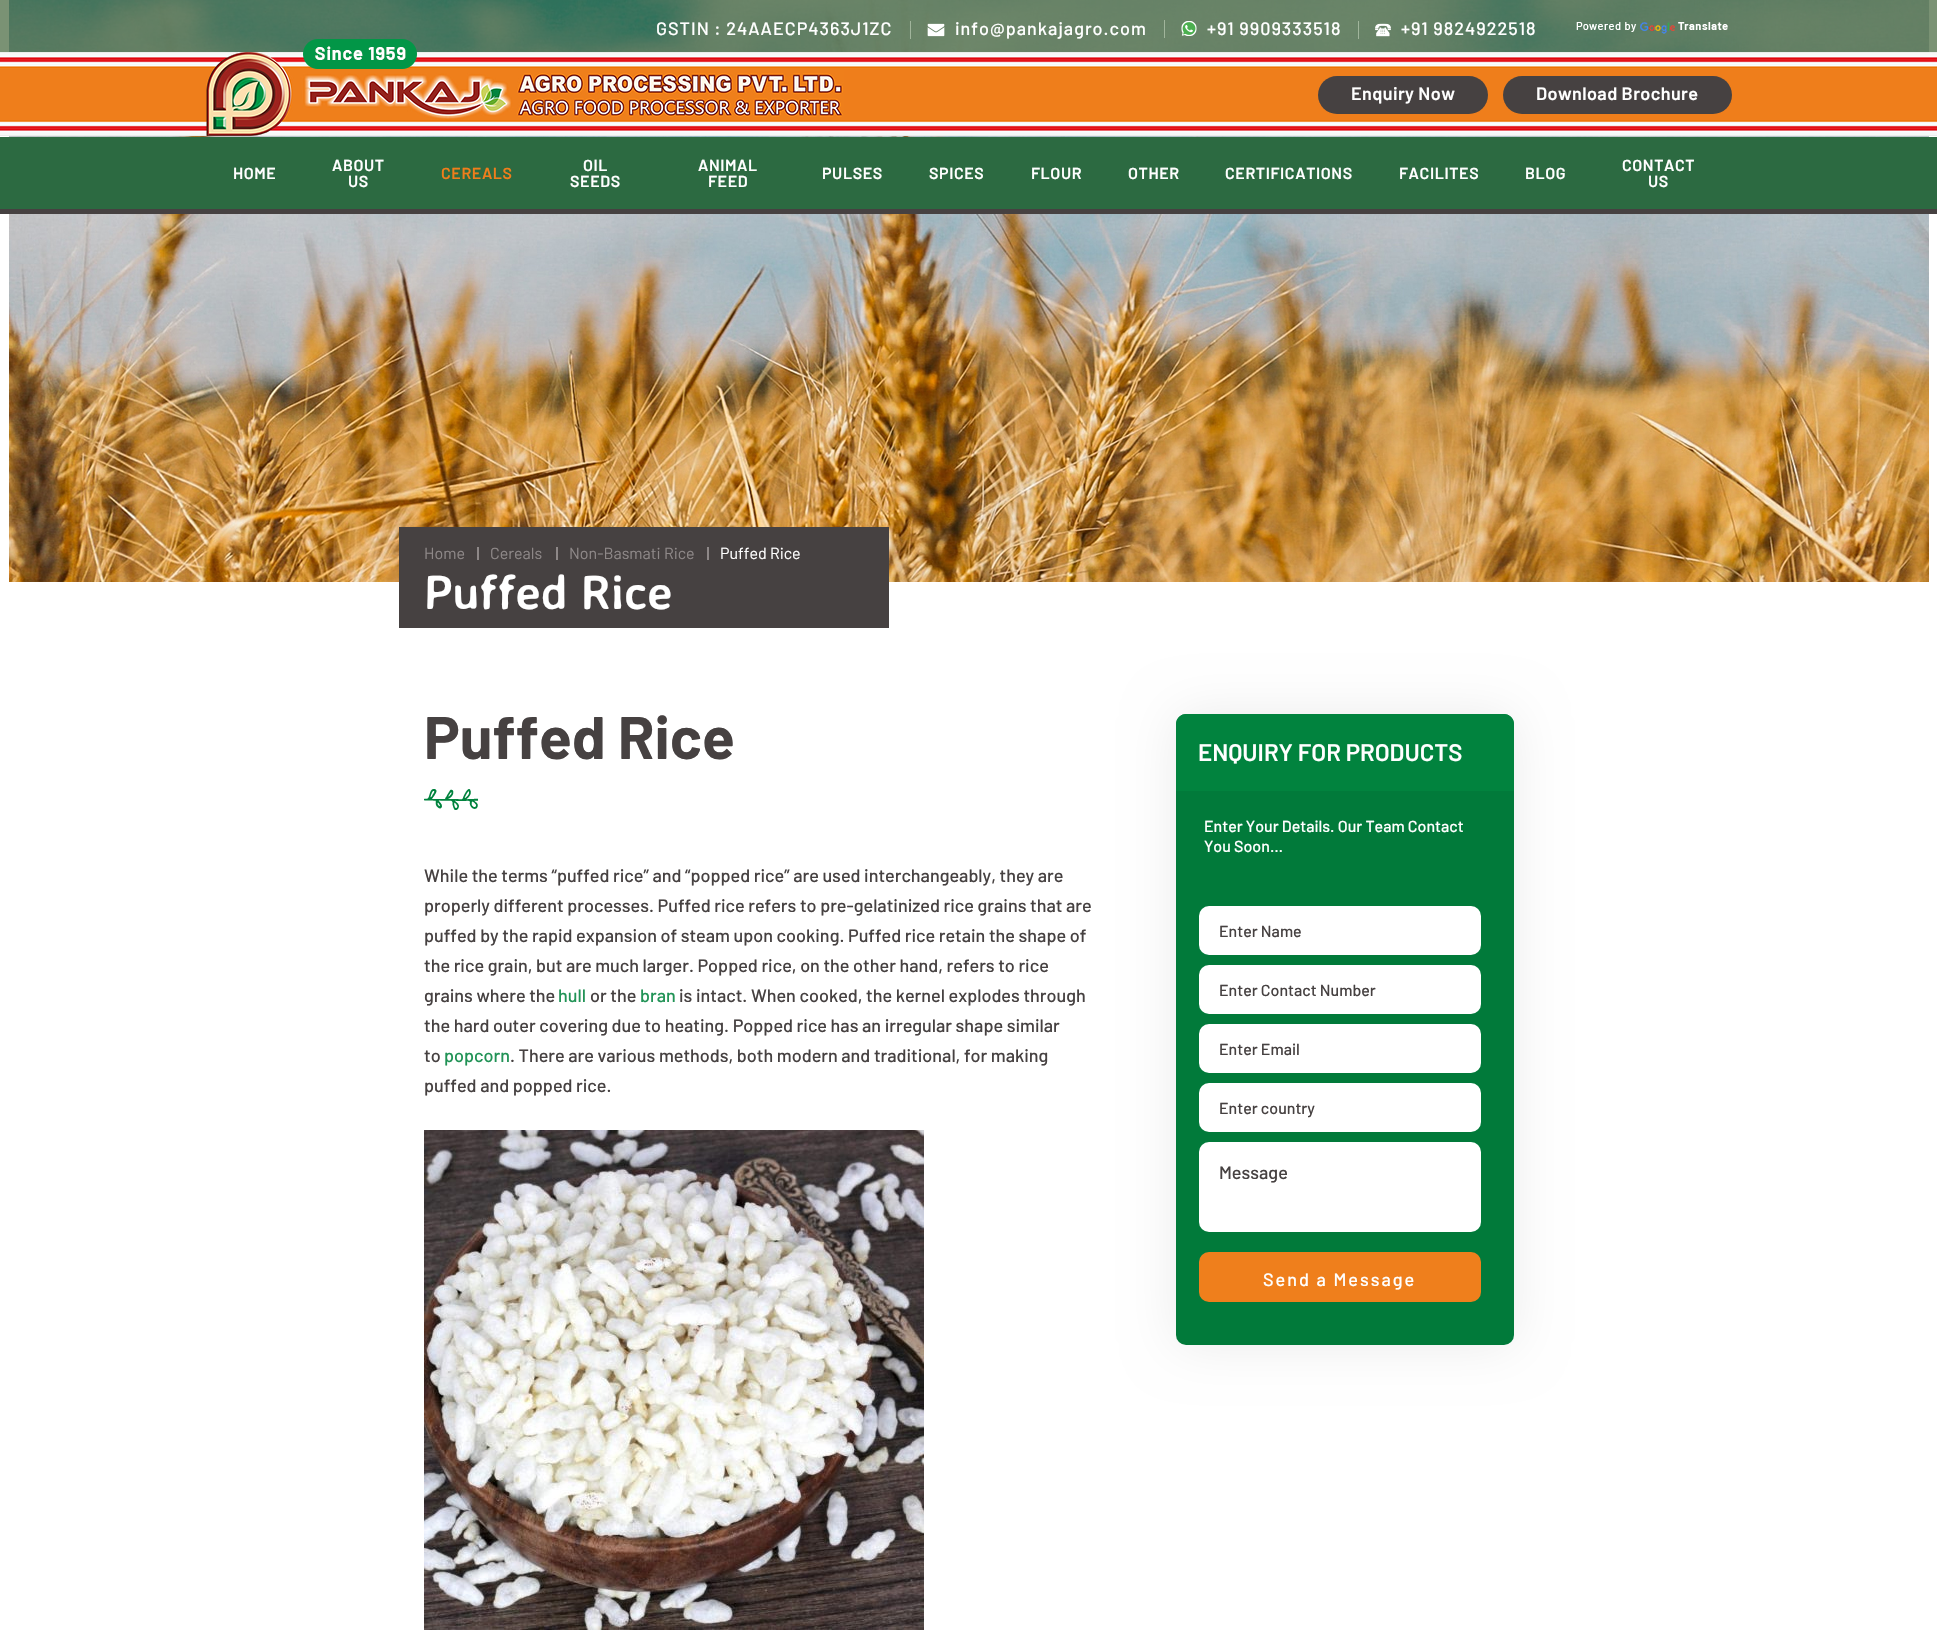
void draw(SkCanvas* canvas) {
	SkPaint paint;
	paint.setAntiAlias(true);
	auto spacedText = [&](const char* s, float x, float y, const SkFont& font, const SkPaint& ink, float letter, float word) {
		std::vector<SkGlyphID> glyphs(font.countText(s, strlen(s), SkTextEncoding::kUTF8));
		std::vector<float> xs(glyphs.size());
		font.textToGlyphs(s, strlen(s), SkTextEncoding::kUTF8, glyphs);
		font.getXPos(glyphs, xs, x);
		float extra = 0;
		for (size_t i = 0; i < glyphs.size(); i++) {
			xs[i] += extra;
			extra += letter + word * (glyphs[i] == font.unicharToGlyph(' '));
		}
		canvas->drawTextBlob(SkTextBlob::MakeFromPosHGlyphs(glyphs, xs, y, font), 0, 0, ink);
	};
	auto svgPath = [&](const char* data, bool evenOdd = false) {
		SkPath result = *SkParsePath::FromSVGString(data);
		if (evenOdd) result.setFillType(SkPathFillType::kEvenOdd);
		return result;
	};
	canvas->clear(0xffffffff);
	canvas->drawImageRect(SkImages::DeferredFromEncodedData(SkData::MakeFromFileName("img7.png")), SkRect::MakeXYWH(9, 0, 1920, 582), SkSamplingOptions());
	paint.setColor(0xb3426439);
	canvas->drawRect(SkRect::MakeXYWH(0, 0, 1937, 52), paint);
	SkFont f1(fontMgr->matchFamilyStyle("Barlow", SkFontStyle(500, SkFontStyle::kNormal_Width, SkFontStyle::kUpright_Slant)), 18);
	f1.setSubpixel(true);
	paint.setColor(0xffffffff);
	spacedText("GSTIN : 24AAECP4363J1ZC", 656, 35, f1, paint, 1, 0);
	paint.setColor(0xffa1b59c);
	canvas->drawRect(SkRect::MakeXYWH(910, 21, 1, 18), paint);
	canvas->drawImageRect(SkImages::DeferredFromEncodedData(SkData::MakeFromFileName("img1.png")), SkRect::MakeXYWH(927, 23, 18, 14), SkSamplingOptions());
	paint.setColor(0xffffffff);
	spacedText("info@pankajagro.com", 955, 35, f1, paint, 1, 0);
	paint.setColor(0xffa1b59c);
	canvas->drawRect(SkRect::MakeXYWH(1164, 20, 1, 18), paint);
	canvas->drawImageRect(SkImages::DeferredFromEncodedData(SkData::MakeFromFileName("img2.png")), SkRect::MakeXYWH(1181, 21, 16, 15), SkSamplingOptions());
	paint.setColor(0xffffffff);
	spacedText("+91 9909333518", 1207, 35, f1, paint, 1, 0);
	paint.setColor(0xffa1b59c);
	canvas->drawRect(SkRect::MakeXYWH(1358, 21, 1, 18), paint);
	canvas->drawImageRect(SkImages::DeferredFromEncodedData(SkData::MakeFromFileName("img3.png")), SkRect::MakeXYWH(1375, 23, 16, 14), SkSamplingOptions());
	paint.setColor(0xffffffff);
	spacedText("+91 9824922518", 1401, 35, f1, paint, 1, 0);
	canvas->drawImageRect(SkImages::DeferredFromEncodedData(SkData::MakeFromFileName("img4.png")), SkRect::MakeXYWH(1576, 22, 152, 12), SkSamplingOptions());
	canvas->drawImageRect(SkImages::DeferredFromEncodedData(SkData::MakeFromFileName("img5.png")), SkRect::MakeXYWH(0, 52, 1937, 84), SkSamplingOptions());
	canvas->drawImageRect(SkImages::DeferredFromEncodedData(SkData::MakeFromFileName("img6.png")), SkRect::MakeXYWH(206, 39, 638, 97), SkSamplingOptions());
	paint.setColor(0xff464141);
	canvas->drawRoundRect(SkRect::MakeXYWH(1318, 76, 170, 38), 19, 19, paint);
	SkFont f2(fontMgr->matchFamilyStyle("Barlow", SkFontStyle(600, SkFontStyle::kNormal_Width, SkFontStyle::kUpright_Slant)), 18);
	f2.setSubpixel(true);
	paint.setColor(0xffffffff);
	spacedText("Enquiry Now", 1351, 100, f2, paint, 0.4, 0);
	paint.setColor(0xff464141);
	canvas->drawRoundRect(SkRect::MakeXYWH(1503, 76, 229, 38), 19, 19, paint);
	paint.setColor(0xffffffff);
	spacedText("Download Brochure", 1536, 100, f2, paint, 0.4, 0);
	paint.setColor(0xff2c6a41);
	canvas->drawRect(SkRect::MakeXYWH(0, 137, 1937, 72), paint);
	paint.setColor(0xff464141);
	canvas->drawRect(SkRect::MakeXYWH(0, 209, 1937, 5), paint);
	SkFont f3(fontMgr->matchFamilyStyle("Barlow", SkFontStyle(600, SkFontStyle::kNormal_Width, SkFontStyle::kUpright_Slant)), 16);
	f3.setSubpixel(true);
	paint.setColor(0xffffffff);
	spacedText("HOME", 233, 179, f3, paint, 0.6, 0);
	spacedText("ABOUT", 332, 171, f3, paint, 0.6, 0);
	spacedText("US", 348, 187, f3, paint, 0.6, 0);
	paint.setColor(0xffef7e1b);
	spacedText("CEREALS", 441, 179, f3, paint, 0.6, 0);
	paint.setColor(0xffffffff);
	spacedText("OIL", 583, 171, f3, paint, 0.6, 0);
	spacedText("SEEDS", 570, 187, f3, paint, 0.6, 0);
	spacedText("ANIMAL", 698, 171, f3, paint, 0.6, 0);
	spacedText("FEED", 708, 187, f3, paint, 0.6, 0);
	spacedText("PULSES", 822, 179, f3, paint, 0.6, 0);
	spacedText("SPICES", 929, 179, f3, paint, 0.6, 0);
	spacedText("FLOUR", 1031, 179, f3, paint, 0.6, 0);
	spacedText("OTHER", 1128, 179, f3, paint, 0.6, 0);
	spacedText("CERTIFICATIONS", 1225, 179, f3, paint, 0.6, 0);
	spacedText("FACILITES", 1399, 179, f3, paint, 0.6, 0);
	spacedText("BLOG", 1525, 179, f3, paint, 0.6, 0);
	spacedText("CONTACT", 1622, 171, f3, paint, 0.6, 0);
	spacedText("US", 1648, 187, f3, paint, 0.6, 0);
	paint.setColor(0xff464141);
	canvas->drawRect(SkRect::MakeXYWH(399, 527, 490, 101), paint);
	SkFont f4(fontMgr->matchFamilyStyle("Barlow", SkFontStyle::Normal()), 16);
	f4.setSubpixel(true);
	paint.setColor(0xff8e8888);
	canvas->drawString("Home", 424, 559, f4, paint);
	canvas->drawRect(SkRect::MakeXYWH(477, 547, 2, 13), paint);
	canvas->drawString("Cereals", 490, 559, f4, paint);
	canvas->drawRect(SkRect::MakeXYWH(556, 547, 2, 13), paint);
	canvas->drawString("Non-Basmati Rice", 569, 559, f4, paint);
	canvas->drawRect(SkRect::MakeXYWH(707, 547, 2, 13), paint);
	paint.setColor(0xffffffff);
	canvas->drawString("Puffed Rice", 720, 559, f4, paint);
	SkFont f5(fontMgr->matchFamilyStyle("Averia Sans Libre", SkFontStyle::Bold()), 48);
	f5.setSubpixel(true);
	canvas->drawString("Puffed Rice", 424, 609, f5, paint);
	SkFont f6(fontMgr->matchFamilyStyle("Barlow", SkFontStyle::Bold()), 60);
	f6.setSubpixel(true);
	paint.setColor(0xff464141);
	canvas->drawString("Puffed Rice", 424, 759, f6, paint);
	canvas->drawImageRect(SkImages::DeferredFromEncodedData(SkData::MakeFromFileName("img8.png")), SkRect::MakeXYWH(424, 789, 54, 21), SkSamplingOptions());
	canvas->drawString("While the terms “puffed rice” and “popped rice” are used interchangeably, they are", 424, 882, f1, paint);
	canvas->drawString("properly different processes. Puffed rice refers to pre-gelatinized rice grains that are", 424, 912, f1, paint);
	canvas->drawString("puffed by the rapid expansion of steam upon cooking. Puffed rice retain the shape of", 424, 942, f1, paint);
	canvas->drawString("the rice grain, but are much larger. Popped rice, on the other hand, refers to rice", 424, 972, f1, paint);
	canvas->drawString("grains where the", 424, 1002, f1, paint);
	paint.setColor(0xff219356);
	canvas->drawString("hull", 558, 1002, f1, paint);
	paint.setColor(0xff464141);
	canvas->drawString("or the", 590, 1002, f1, paint);
	paint.setColor(0xff219356);
	canvas->drawString("bran", 640, 1002, f1, paint);
	paint.setColor(0xff464141);
	canvas->drawString("is intact. When cooked, the kernel explodes through", 679, 1002, f1, paint);
	canvas->drawString("the hard outer covering due to heating. Popped rice has an irregular shape similar", 424, 1032, f1, paint);
	canvas->drawString("to", 424, 1062, f1, paint);
	paint.setColor(0xff219356);
	canvas->drawString("popcorn", 444, 1062, f1, paint);
	paint.setColor(0xff464141);
	canvas->drawString(". There are various methods, both modern and traditional, for making", 510, 1062, f1, paint);
	canvas->drawString("puffed and popped rice.", 424, 1092, f1, paint);
	canvas->drawImageRect(SkImages::DeferredFromEncodedData(SkData::MakeFromFileName("img9.png")), SkRect::MakeXYWH(424, 1130, 500, 500), SkSamplingOptions());
	paint.setColor(0x14000000);
	paint.setMaskFilter(SkMaskFilter::MakeBlur(kNormal_SkBlurStyle, 25.5));
	canvas->drawRoundRect(SkRect::MakeXYWH(1176, 714, 338, 631), 10, 10, paint);
	paint.setMaskFilter(nullptr);
	paint.setColor(0xff017a3a);
	canvas->drawRoundRect(SkRect::MakeXYWH(1176, 714, 338, 631), 10, 10, paint);
	paint.setColor(0xff01833e);
	canvas->drawPath(svgPath("M1186 714H1504C1509.5 714 1514 718.5 1514 724V791H1176V724C1176 718.5 1180.5 714 1186 714Z"), paint);
	SkFont f7(fontMgr->matchFamilyStyle("Barlow", SkFontStyle(600, SkFontStyle::kNormal_Width, SkFontStyle::kUpright_Slant)), 24);
	f7.setSubpixel(true);
	paint.setColor(0xffffffff);
	canvas->drawString("ENQUIRY FOR PRODUCTS", 1198, 761, f7, paint);
	SkFont f8(fontMgr->matchFamilyStyle("Barlow", SkFontStyle(500, SkFontStyle::kNormal_Width, SkFontStyle::kUpright_Slant)), 16);
	f8.setSubpixel(true);
	canvas->drawString("Enter Your Details. Our Team Contact", 1204, 832, f8, paint);
	canvas->drawString("You Soon…", 1204, 852, f8, paint);
	canvas->drawRoundRect(SkRect::MakeXYWH(1199, 906, 282, 49), 10, 10, paint);
	paint.setColor(0xff464141);
	canvas->drawString("Enter Name", 1219, 937, f8, paint);
	paint.setColor(0xffffffff);
	canvas->drawRoundRect(SkRect::MakeXYWH(1199, 965, 282, 49), 10, 10, paint);
	paint.setColor(0xff464141);
	canvas->drawString("Enter Contact Number", 1219, 996, f8, paint);
	paint.setColor(0xffffffff);
	canvas->drawRoundRect(SkRect::MakeXYWH(1199, 1024, 282, 49), 10, 10, paint);
	paint.setColor(0xff464141);
	canvas->drawString("Enter Email", 1219, 1055, f8, paint);
	paint.setColor(0xffffffff);
	canvas->drawRoundRect(SkRect::MakeXYWH(1199, 1083, 282, 49), 10, 10, paint);
	paint.setColor(0xff464141);
	canvas->drawString("Enter country", 1219, 1114, f8, paint);
	paint.setColor(0xffffffff);
	canvas->drawRoundRect(SkRect::MakeXYWH(1199, 1142, 282, 90), 10, 10, paint);
	paint.setColor(0xff464141);
	canvas->drawString("Message", 1219, 1179, f1, paint);
	paint.setColor(0xffef7f1c);
	canvas->drawRoundRect(SkRect::MakeXYWH(1199, 1252, 282, 50), 10, 10, paint);
	paint.setColor(0xffffffff);
	spacedText("Send a Message", 1263, 1286, f1, paint, 2, 0);
}
